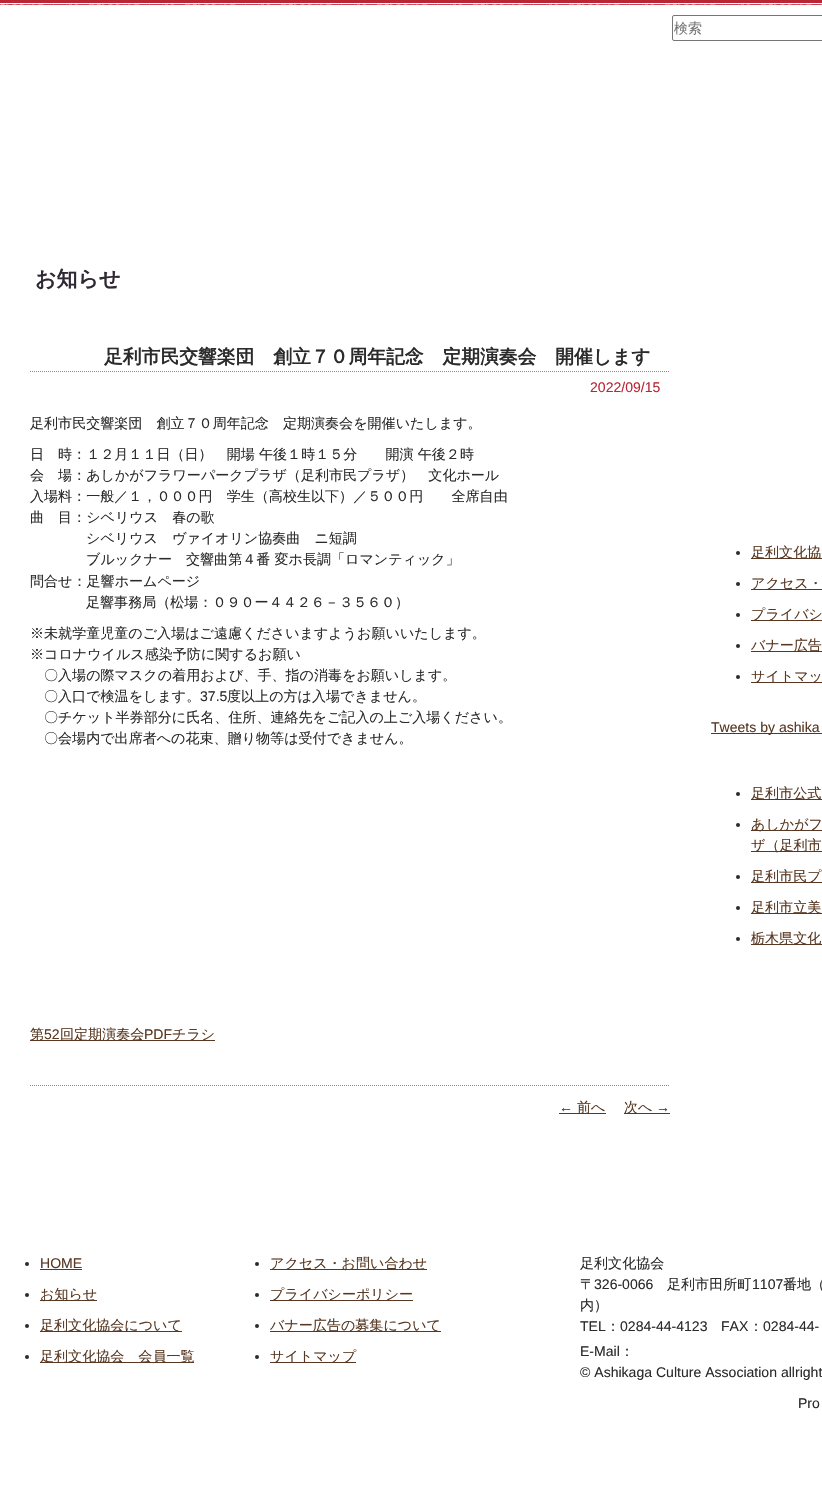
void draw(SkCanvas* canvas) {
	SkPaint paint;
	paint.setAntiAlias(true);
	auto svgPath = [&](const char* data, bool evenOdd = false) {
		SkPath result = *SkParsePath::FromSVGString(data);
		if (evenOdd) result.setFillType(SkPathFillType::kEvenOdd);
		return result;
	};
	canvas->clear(0xffffffff);
	canvas->drawImageRect(SkImages::DeferredFromEncodedData(SkData::MakeFromFileName("img1.png")), SkRect::MakeXYWH(0, 0, 822, 5), SkSamplingOptions());
	paint.setStroke(true);
	paint.setStrokeWidth(1);
	paint.setColor(0xff767676);
	canvas->drawRoundRect(SkRect::MakeXYWH(672.5, 15.5, 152, 25), 1.5, 1.5, paint);
	SkFont f1(fontMgr->matchFamilyStyle("WenQuanYi Zen Hei", SkFontStyle(500, SkFontStyle::kNormal_Width, SkFontStyle::kUpright_Slant)), 14);
	f1.setSubpixel(true);
	paint.setStroke(false);
	paint.setColor(0xff757575);
	canvas->drawString("検索", 674, 33, f1, paint);
	SkFont f2(fontMgr->matchFamilyStyle("WenQuanYi Zen Hei", SkFontStyle::Bold()), 21);
	f2.setSubpixel(true);
	paint.setColor(0xff302833);
	canvas->drawString("お知らせ", 35, 286, f2, paint);
	paint.setStroke(true);
	paint.setColor(0xff9d896c);
	paint.setPathEffect(SkDashPathEffect::Make({{1, 1}}, 0));
	canvas->drawPath(svgPath("M30 371.5H670"), paint);
	paint.setPathEffect(nullptr);
	SkFont f3(fontMgr->matchFamilyStyle("WenQuanYi Zen Hei", SkFontStyle::Bold()), 18.8);
	f3.setSubpixel(true);
	paint.setStroke(false);
	paint.setColor(0xff2b2b2b);
	canvas->drawString("足利市民交響楽団　創立７０周年記念　定期演奏会　開催します", 104, 363, f3, paint);
	SkFont f4(fontMgr->matchFamilyStyle("Liberation Sans", SkFontStyle::Normal()), 14.05);
	f4.setSubpixel(true);
	paint.setColor(0xffba2636);
	canvas->drawString("2022/09/15", 590, 392, f4, paint);
	paint.setStroke(true);
	paint.setColor(0xff9d896c);
	paint.setPathEffect(SkDashPathEffect::Make({{1, 1}}, 0));
	canvas->drawPath(svgPath("M30 1085.5H670"), paint);
	paint.setPathEffect(nullptr);
	SkFont f5(fontMgr->matchFamilyStyle("WenQuanYi Zen Hei", SkFontStyle(500, SkFontStyle::kNormal_Width, SkFontStyle::kUpright_Slant)), 14.05);
	f5.setSubpixel(true);
	paint.setStroke(false);
	paint.setColor(0xff2b2b2b);
	canvas->drawString("足利市民交響楽団　創立７０周年記念　定期演奏会を開催いたします。", 30, 428, f5, paint);
	canvas->drawString("日　時：１２月１１日（日）　開場 午後１時１５分　　開演 午後２時", 30, 459, f5, paint);
	canvas->drawString("会　場：あしかがフラワーパークプラザ（足利市民プラザ）　文化ホール", 30, 480, f5, paint);
	canvas->drawString("入場料：一般／１，０００円　学生（高校生以下）／５００円　　全席自由", 30, 501, f5, paint);
	canvas->drawString("曲　目：シベリウス　春の歌", 30, 522, f5, paint);
	canvas->drawString("シベリウス　ヴァイオリン協奏曲　ニ短調", 86, 543, f5, paint);
	canvas->drawString("ブルックナー　交響曲第４番 変ホ長調「ロマンティック」", 86, 564, f5, paint);
	canvas->drawString("問合せ：足響ホームページ", 30, 586, f5, paint);
	canvas->drawString("足響事務局（松場：０９０ー４４２６－３５６０）", 86, 607, f5, paint);
	canvas->drawString("※未就学童児童のご入場はご遠慮くださいますようお願いいたします。", 30, 638, f5, paint);
	canvas->drawString("※コロナウイルス感染予防に関するお願い", 30, 659, f5, paint);
	canvas->drawString("〇入場の際マスクの着用および、手、指の消毒をお願いします。", 44, 680, f5, paint);
	canvas->drawString("〇入口で検温をします。", 44, 701, f5, paint);
	canvas->drawString("37.5", 200, 701, f4, paint);
	canvas->drawString("度以上の方は入場できません。", 227, 701, f5, paint);
	canvas->drawString("〇チケット半券部分に氏名、住所、連絡先をご記入の上ご入場ください。", 44, 722, f5, paint);
	canvas->drawString("〇会場内で出席者への花束、贈り物等は受付できません。", 44, 743, f5, paint);
	paint.setColor(0xff583822);
	canvas->drawRect(SkRect::MakeXYWH(30, 1040, 185, 1), paint);
	canvas->drawString("第", 30, 1039, f5, paint);
	canvas->drawString("52", 44, 1039, f4, paint);
	canvas->drawString("回定期演奏会", 60, 1039, f5, paint);
	canvas->drawString("PDF", 144, 1039, f4, paint);
	canvas->drawString("チラシ", 172, 1039, f5, paint);
	canvas->drawString("←", 559, 1112, f4, paint);
	canvas->drawRect(SkRect::MakeXYWH(559, 1113, 47, 1), paint);
	canvas->drawString("前へ", 577, 1112, f5, paint);
	canvas->drawRect(SkRect::MakeXYWH(624, 1113, 46, 1), paint);
	canvas->drawString("次へ", 624, 1112, f5, paint);
	canvas->drawString("→", 656, 1112, f4, paint);
	paint.setColor(0xff2b2b2b);
	canvas->drawCircle(738, 553, 2, paint);
	paint.setColor(0xff583822);
	canvas->drawRect(SkRect::MakeXYWH(751, 558, 71, 1), paint);
	canvas->drawString("足利文化協", 751, 557, f5, paint);
	paint.setColor(0xff2b2b2b);
	canvas->drawCircle(738, 584, 2, paint);
	paint.setColor(0xff583822);
	canvas->drawRect(SkRect::MakeXYWH(751, 589, 71, 1), paint);
	canvas->drawString("アクセス・", 751, 588, f5, paint);
	paint.setColor(0xff2b2b2b);
	canvas->drawCircle(738, 615, 2, paint);
	paint.setColor(0xff583822);
	canvas->drawRect(SkRect::MakeXYWH(751, 620, 71, 1), paint);
	canvas->drawString("プライバシ", 751, 619, f5, paint);
	paint.setColor(0xff2b2b2b);
	canvas->drawCircle(738, 646, 2, paint);
	paint.setColor(0xff583822);
	canvas->drawRect(SkRect::MakeXYWH(751, 651, 71, 1), paint);
	canvas->drawString("バナー広告", 751, 650, f5, paint);
	paint.setColor(0xff2b2b2b);
	canvas->drawCircle(738, 677, 2, paint);
	paint.setColor(0xff583822);
	canvas->drawRect(SkRect::MakeXYWH(751, 682, 71, 1), paint);
	canvas->drawString("サイトマッ", 751, 681, f5, paint);
	canvas->drawRect(SkRect::MakeXYWH(711, 733, 111, 1), paint);
	canvas->drawString("Tweets by ashika", 711, 732, f4, paint);
	paint.setColor(0xff2b2b2b);
	canvas->drawCircle(738, 794, 2, paint);
	paint.setColor(0xff583822);
	canvas->drawRect(SkRect::MakeXYWH(751, 799, 71, 1), paint);
	canvas->drawString("足利市公式", 751, 798, f5, paint);
	paint.setColor(0xff2b2b2b);
	canvas->drawCircle(738, 825, 2, paint);
	paint.setColor(0xff583822);
	canvas->drawRect(SkRect::MakeXYWH(751, 830, 71, 1), paint);
	canvas->drawString("あしかがフ", 751, 829, f5, paint);
	canvas->drawRect(SkRect::MakeXYWH(751, 851, 71, 1), paint);
	canvas->drawString("ザ（足利市", 751, 850, f5, paint);
	paint.setColor(0xff2b2b2b);
	canvas->drawCircle(738, 877, 2, paint);
	paint.setColor(0xff583822);
	canvas->drawRect(SkRect::MakeXYWH(751, 882, 71, 1), paint);
	canvas->drawString("足利市民プ", 751, 881, f5, paint);
	paint.setColor(0xff2b2b2b);
	canvas->drawCircle(738, 908, 2, paint);
	paint.setColor(0xff583822);
	canvas->drawRect(SkRect::MakeXYWH(751, 913, 71, 1), paint);
	canvas->drawString("足利市立美", 751, 912, f5, paint);
	paint.setColor(0xff2b2b2b);
	canvas->drawCircle(738, 939, 2, paint);
	paint.setColor(0xff583822);
	canvas->drawRect(SkRect::MakeXYWH(751, 944, 71, 1), paint);
	canvas->drawString("栃木県文化", 751, 943, f5, paint);
	paint.setColor(0xff2b2b2b);
	canvas->drawCircle(27, 1264, 2, paint);
	paint.setColor(0xff583822);
	canvas->drawString("HOME", 40, 1268, f4, paint);
	canvas->drawRect(SkRect::MakeXYWH(40, 1269, 42, 1), paint);
	paint.setColor(0xff2b2b2b);
	canvas->drawCircle(27, 1295, 2, paint);
	paint.setColor(0xff583822);
	canvas->drawRect(SkRect::MakeXYWH(40, 1300, 57, 1), paint);
	canvas->drawString("お知らせ", 40, 1299, f5, paint);
	paint.setColor(0xff2b2b2b);
	canvas->drawCircle(27, 1326, 2, paint);
	paint.setColor(0xff583822);
	canvas->drawRect(SkRect::MakeXYWH(40, 1331, 142, 1), paint);
	canvas->drawString("足利文化協会について", 40, 1330, f5, paint);
	paint.setColor(0xff2b2b2b);
	canvas->drawCircle(27, 1357, 2, paint);
	paint.setColor(0xff583822);
	canvas->drawRect(SkRect::MakeXYWH(40, 1362, 154, 1), paint);
	canvas->drawString("足利文化協会　会員一覧", 40, 1361, f5, paint);
	paint.setColor(0xff2b2b2b);
	canvas->drawCircle(257, 1264, 2, paint);
	paint.setColor(0xff583822);
	canvas->drawRect(SkRect::MakeXYWH(270, 1269, 157, 1), paint);
	canvas->drawString("アクセス・お問い合わせ", 270, 1268, f5, paint);
	paint.setColor(0xff2b2b2b);
	canvas->drawCircle(257, 1295, 2, paint);
	paint.setColor(0xff583822);
	canvas->drawRect(SkRect::MakeXYWH(270, 1300, 143, 1), paint);
	canvas->drawString("プライバシーポリシー", 270, 1299, f5, paint);
	paint.setColor(0xff2b2b2b);
	canvas->drawCircle(257, 1326, 2, paint);
	paint.setColor(0xff583822);
	canvas->drawRect(SkRect::MakeXYWH(270, 1331, 171, 1), paint);
	canvas->drawString("バナー広告の募集について", 270, 1330, f5, paint);
	paint.setColor(0xff2b2b2b);
	canvas->drawCircle(257, 1357, 2, paint);
	paint.setColor(0xff583822);
	canvas->drawRect(SkRect::MakeXYWH(270, 1362, 86, 1), paint);
	canvas->drawString("サイトマップ", 270, 1361, f5, paint);
	paint.setColor(0xff2b2b2b);
	canvas->drawString("足利文化協会", 580, 1268, f5, paint);
	canvas->drawString("〒", 580, 1289, f5, paint);
	canvas->drawString("326-0066", 594, 1289, f4, paint);
	canvas->drawString("足利市田所町", 667, 1289, f5, paint);
	canvas->drawString("1107", 752, 1289, f4, paint);
	canvas->drawString("番地（", 783, 1289, f5, paint);
	canvas->drawString("内）", 580, 1310, f5, paint);
	canvas->drawString("TEL", 580, 1331, f4, paint);
	canvas->drawString("：", 606, 1331, f5, paint);
	canvas->drawString("0284-44-4123", 620, 1331, f4, paint);
	canvas->drawString("FAX", 721, 1331, f4, paint);
	canvas->drawString("：", 749, 1331, f5, paint);
	canvas->drawString("0284-44-", 763, 1331, f4, paint);
	canvas->drawString("E-Mail", 580, 1356, f4, paint);
	canvas->drawString("：", 620, 1356, f5, paint);
	canvas->drawString("© Ashikaga Culture Association allright", 580, 1377, f4, paint);
	canvas->drawString("Pro", 798, 1408, f4, paint);
}
